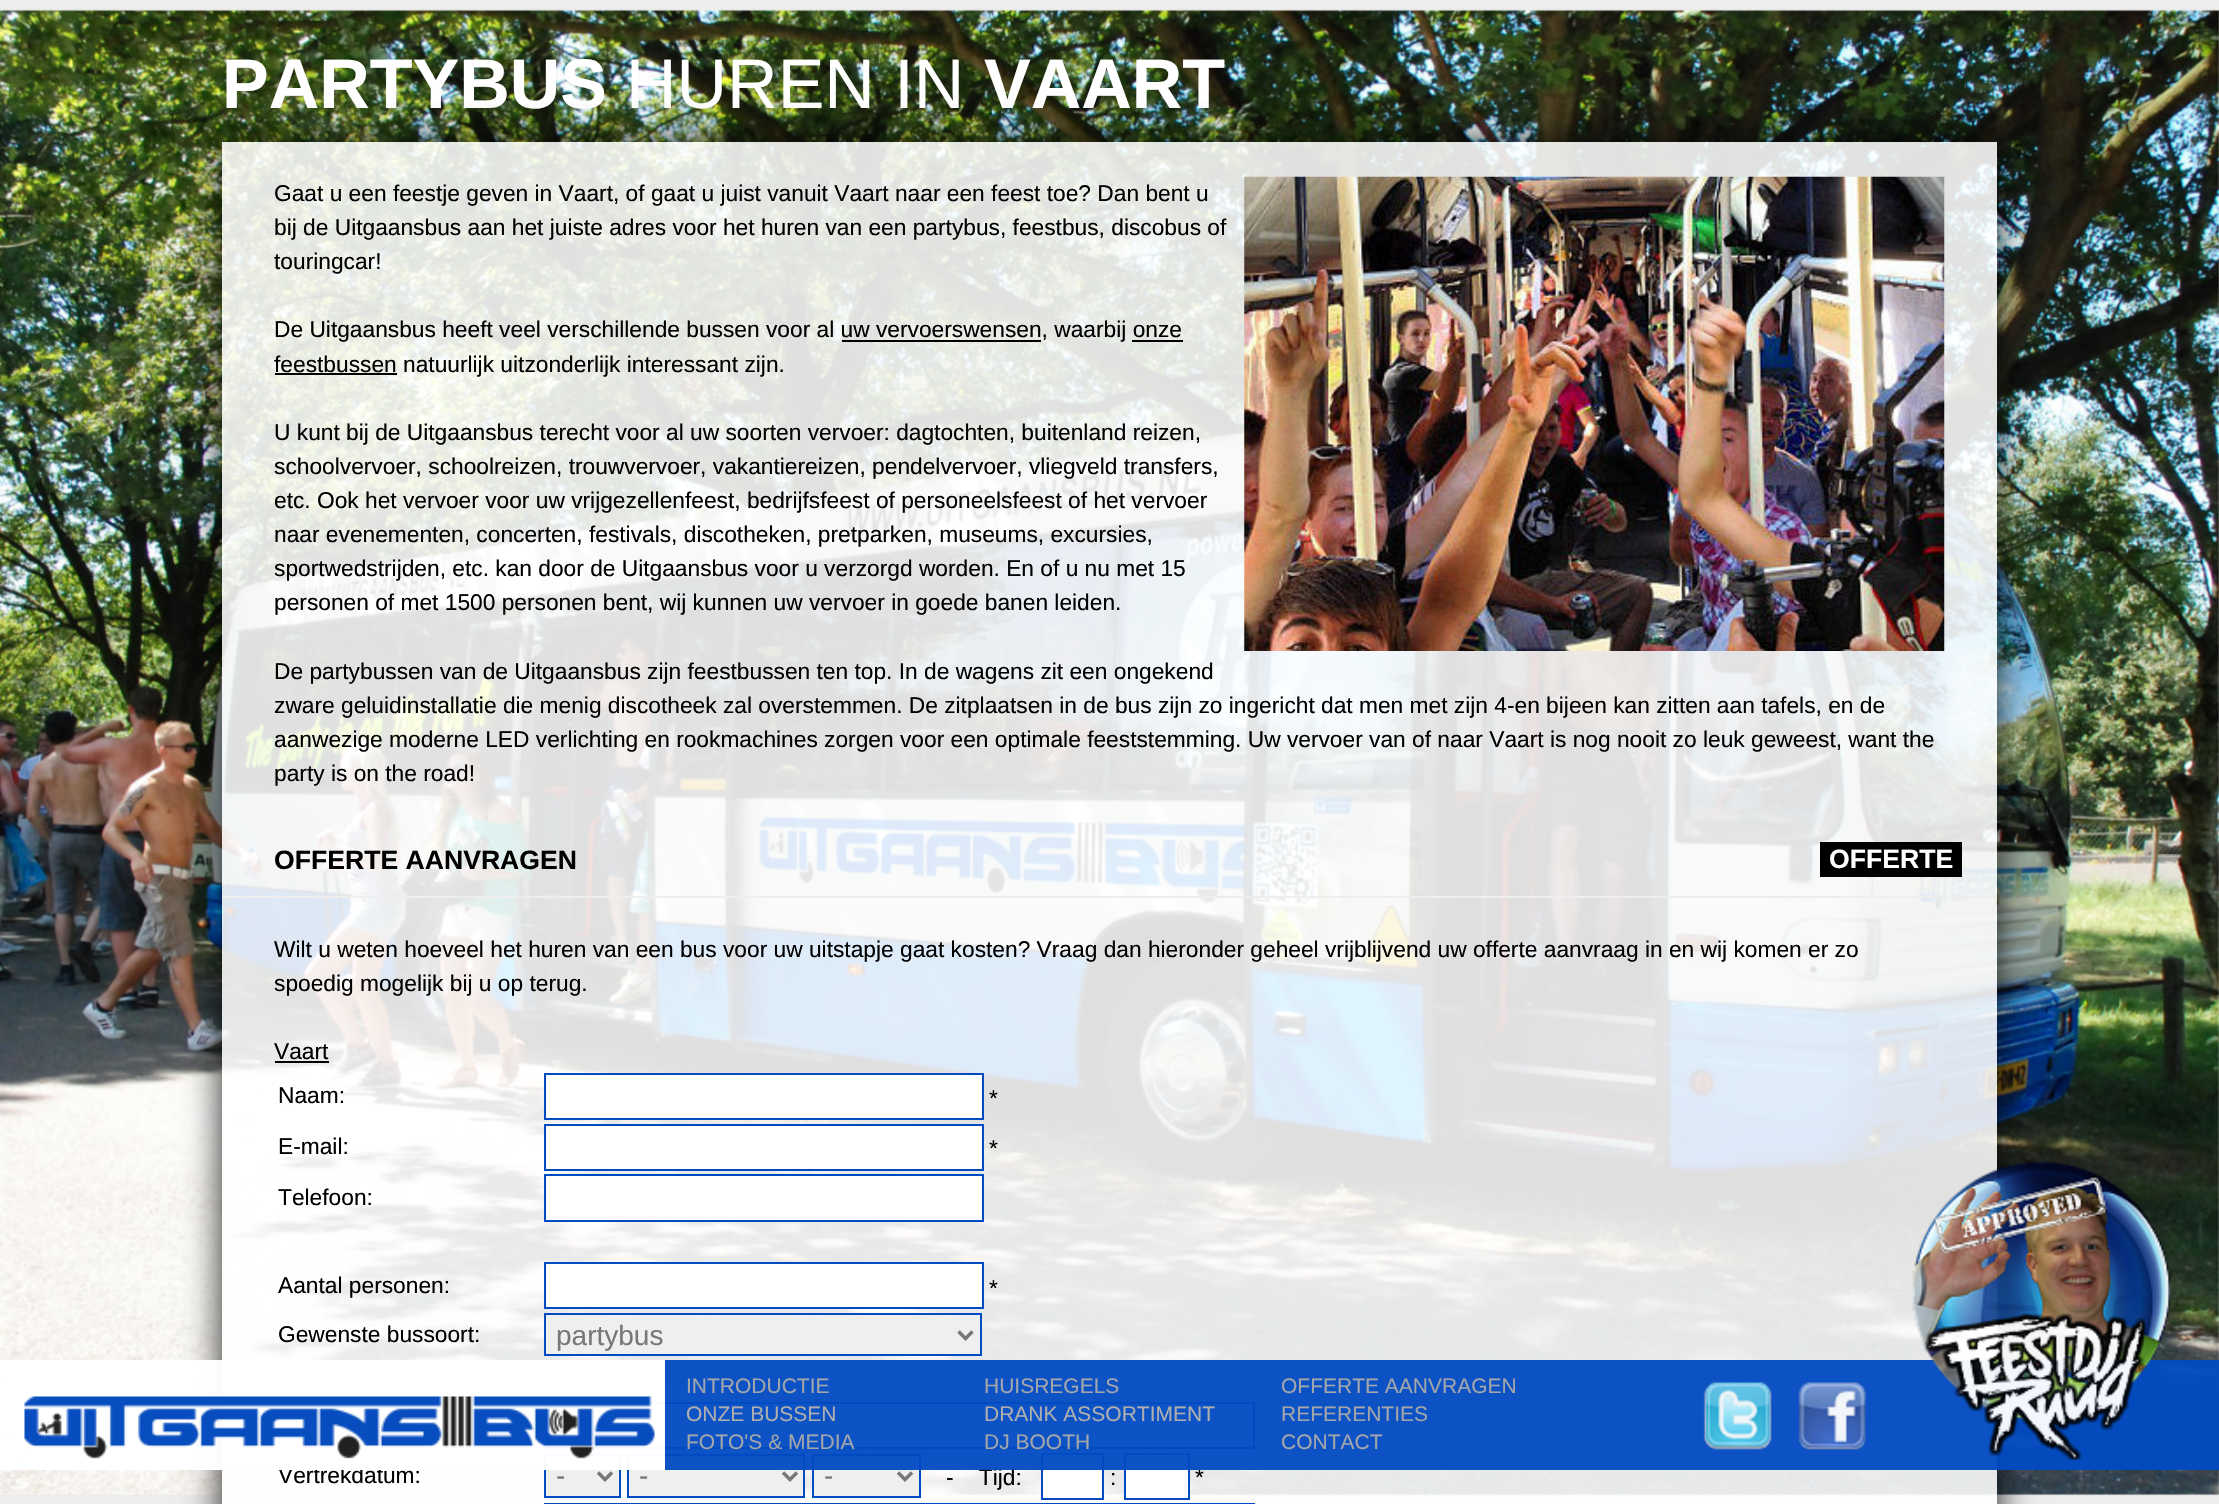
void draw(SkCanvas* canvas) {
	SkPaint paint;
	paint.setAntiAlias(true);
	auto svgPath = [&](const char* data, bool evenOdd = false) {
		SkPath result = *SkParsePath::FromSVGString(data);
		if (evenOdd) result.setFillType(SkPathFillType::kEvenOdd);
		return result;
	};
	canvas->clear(0xffffffff);
	canvas->drawImageRect(SkImages::DeferredFromEncodedData(SkData::MakeFromFileName("img1.png")), SkRect::MakeXYWH(0, 0, 2219, 1504), SkSamplingOptions());
	canvas->drawImageRect(SkImages::DeferredFromEncodedData(SkData::MakeFromFileName("img2.png")), SkRect::MakeXYWH(0, 9, 2219, 1487), SkSamplingOptions());
	SkFont f1(fontMgr->matchFamilyStyle("Liberation Sans", SkFontStyle::Bold()), 70);
	f1.setSubpixel(true);
	paint.setColor(0xffffffff);
	canvas->drawString("PARTYBUS", 222, 108, f1, paint);
	SkFont f2(fontMgr->matchFamilyStyle("Liberation Sans", SkFontStyle::Normal()), 70);
	f2.setSubpixel(true);
	canvas->drawString("HUREN IN", 626, 108, f2, paint);
	canvas->drawString("VAART", 984, 108, f1, paint);
	canvas->save();
	canvas->clipPath(svgPath("M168 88H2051V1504H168ZM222 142H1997V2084H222Z", true), true);
	paint.setColor(0xde000000);
	paint.setMaskFilter(SkMaskFilter::MakeBlur(kNormal_SkBlurStyle, 17.5));
	canvas->drawRect(SkRect::MakeXYWH(222, 142, 1775, 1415), paint);
	paint.setMaskFilter(nullptr);
	canvas->restore();
	paint.setColor(0xdeffffff);
	canvas->drawRect(SkRect::MakeXYWH(222, 142, 1775, 1362), paint);
	SkFont f3(fontMgr->matchFamilyStyle("Liberation Sans", SkFontStyle::Normal()), 22.75);
	f3.setSubpixel(true);
	paint.setColor(0xff000000);
	canvas->drawString("Gaat u een feestje geven in Vaart, of gaat u juist vanuit Vaart naar een feest toe? Dan bent u", 274, 201, f3, paint);
	canvas->drawImageRect(SkImages::DeferredFromEncodedData(SkData::MakeFromFileName("img3.png")), SkRect::MakeXYWH(1244, 176, 701, 475), SkSamplingOptions());
	canvas->drawString("bij de Uitgaansbus aan het juiste adres voor het huren van een partybus, feestbus, discobus of", 274, 235, f3, paint);
	canvas->drawString("touringcar!", 274, 269, f3, paint);
	canvas->drawString("De Uitgaansbus heeft veel verschillende bussen voor al uw vervoerswensen, waarbij onze", 274, 337, f3, paint);
	canvas->drawRect(SkRect::MakeXYWH(842, 340, 199, 2), paint);
	canvas->drawRect(SkRect::MakeXYWH(275, 373, 122, 2), paint);
	canvas->drawString("feestbussen natuurlijk uitzonderlijk interessant zijn.", 274, 372, f3, paint);
	canvas->drawRect(SkRect::MakeXYWH(1132, 340, 51, 2), paint);
	canvas->drawString("U kunt bij de Uitgaansbus terecht voor al uw soorten vervoer: dagtochten, buitenland reizen,", 274, 440, f3, paint);
	canvas->drawString("schoolvervoer, schoolreizen, trouwvervoer, vakantiereizen, pendelvervoer, vliegveld transfers,", 274, 474, f3, paint);
	canvas->drawString("etc. Ook het vervoer voor uw vrijgezellenfeest, bedrijfsfeest of personeelsfeest of het vervoer", 274, 508, f3, paint);
	canvas->drawString("naar evenementen, concerten, festivals, discotheken, pretparken, museums, excursies,", 274, 542, f3, paint);
	canvas->drawString("sportwedstrijden, etc. kan door de Uitgaansbus voor u verzorgd worden. En of u nu met 15", 274, 576, f3, paint);
	canvas->drawString("personen of met 1500 personen bent, wij kunnen uw vervoer in goede banen leiden.", 274, 610, f3, paint);
	canvas->drawString("De partybussen van de Uitgaansbus zijn feestbussen ten top. In de wagens zit een ongekend", 274, 679, f3, paint);
	canvas->drawString("zware geluidinstallatie die menig discotheek zal overstemmen. De zitplaatsen in de bus zijn zo ingericht dat men met zijn 4-en bijeen kan zitten aan tafels, en de", 274, 713, f3, paint);
	canvas->drawString("aanwezige moderne LED verlichting en rookmachines zorgen voor een optimale feeststemming. Uw vervoer van of naar Vaart is nog nooit zo leuk geweest, want the", 274, 747, f3, paint);
	canvas->drawString("party is on the road!", 274, 781, f3, paint);
	paint.setColor(0xffeeeeee);
	canvas->drawRect(SkRect::MakeXYWH(222, 896, 1775, 2), paint);
	SkFont f4(fontMgr->matchFamilyStyle("Liberation Sans", SkFontStyle::Bold()), 26.6);
	f4.setSubpixel(true);
	paint.setColor(0xff000000);
	canvas->drawString("OFFERTE AANVRAGEN", 274, 869, f4, paint);
	canvas->drawRect(SkRect::MakeXYWH(1820, 842, 142, 35), paint);
	paint.setColor(0xffffffff);
	canvas->drawString("OFFERTE", 1829, 868, f4, paint);
	paint.setColor(0xff000000);
	canvas->drawString("Wilt u weten hoeveel het huren van een bus voor uw uitstapje gaat kosten? Vraag dan hieronder geheel vrijblijvend uw offerte aanvraag in en wij komen er zo", 274, 957, f3, paint);
	canvas->drawString("spoedig mogelijk bij u op terug.", 274, 991, f3, paint);
	canvas->drawString("Vaart", 274, 1059, f3, paint);
	canvas->drawRect(SkRect::MakeXYWH(275, 1061, 54, 2), paint);
	canvas->drawString("Naam:", 278, 1103, f3, paint);
	paint.setColor(0xffffffff);
	canvas->drawRect(SkRect::MakeXYWH(545, 1074, 438, 45), paint);
	paint.setStroke(true);
	paint.setStrokeWidth(2);
	paint.setColor(0xff004ac2);
	canvas->drawRect(SkRect::MakeXYWH(545, 1074, 438, 45), paint);
	paint.setStroke(false);
	paint.setColor(0xff000000);
	canvas->drawString("*", 989, 1106, f3, paint);
	canvas->drawString("E-mail:", 278, 1154, f3, paint);
	paint.setColor(0xffffffff);
	canvas->drawRect(SkRect::MakeXYWH(545, 1125, 438, 45), paint);
	paint.setStroke(true);
	paint.setColor(0xff004ac2);
	canvas->drawRect(SkRect::MakeXYWH(545, 1125, 438, 45), paint);
	paint.setStroke(false);
	paint.setColor(0xff000000);
	canvas->drawString("*", 989, 1156, f3, paint);
	canvas->drawString("Telefoon:", 278, 1205, f3, paint);
	paint.setColor(0xffffffff);
	canvas->drawRect(SkRect::MakeXYWH(545, 1175, 438, 46), paint);
	paint.setStroke(true);
	paint.setColor(0xff004ac2);
	canvas->drawRect(SkRect::MakeXYWH(545, 1175, 438, 46), paint);
	paint.setStroke(false);
	paint.setColor(0xff000000);
	canvas->drawString("Aantal personen:", 278, 1293, f3, paint);
	paint.setColor(0xffffffff);
	canvas->drawRect(SkRect::MakeXYWH(545, 1263, 438, 45), paint);
	paint.setStroke(true);
	paint.setColor(0xff004ac2);
	canvas->drawRect(SkRect::MakeXYWH(545, 1263, 438, 45), paint);
	paint.setStroke(false);
	paint.setColor(0xff000000);
	canvas->drawString("*", 989, 1296, f3, paint);
	canvas->drawString("Gewenste bussoort:", 278, 1342, f3, paint);
	paint.setColor(0xffefefef);
	canvas->drawRect(SkRect::MakeXYWH(545, 1314, 436, 41), paint);
	paint.setStroke(true);
	paint.setColor(0xff004ac2);
	canvas->drawRect(SkRect::MakeXYWH(545, 1314, 436, 41), paint);
	paint.setStrokeWidth(3.5);
	paint.setColor(0xff777777);
	canvas->drawPath(svgPath("M958.5 1331.5L965.5 1338.5L972.5 1331.5"), paint);
	SkFont f5(fontMgr->matchFamilyStyle("Liberation Sans", SkFontStyle::Normal()), 28);
	f5.setSubpixel(true);
	paint.setStroke(false);
	canvas->drawString("partybus", 556, 1345, f5, paint);
	paint.setColor(0xffffffff);
	canvas->drawRect(SkRect::MakeXYWH(545, 1403, 709, 45), paint);
	paint.setStroke(true);
	paint.setStrokeWidth(2);
	paint.setColor(0xff004ac2);
	canvas->drawRect(SkRect::MakeXYWH(545, 1403, 709, 45), paint);
	paint.setStroke(false);
	paint.setColor(0xff000000);
	canvas->drawString("Vertrekdatum:", 278, 1483, f3, paint);
	paint.setColor(0xffefefef);
	canvas->drawRect(SkRect::MakeXYWH(545, 1455, 75, 42), paint);
	paint.setStroke(true);
	paint.setColor(0xff004ac2);
	canvas->drawRect(SkRect::MakeXYWH(545, 1455, 75, 42), paint);
	paint.setStrokeWidth(3.5);
	paint.setColor(0xff777777);
	canvas->drawPath(svgPath("M598 1472.5L605 1479.5L612 1472.5"), paint);
	paint.setStroke(false);
	canvas->drawString("-", 556, 1485, f5, paint);
	paint.setColor(0xffefefef);
	canvas->drawRect(SkRect::MakeXYWH(628, 1455, 176, 42), paint);
	paint.setStroke(true);
	paint.setStrokeWidth(2);
	paint.setColor(0xff004ac2);
	canvas->drawRect(SkRect::MakeXYWH(628, 1455, 176, 42), paint);
	paint.setStrokeWidth(3.5);
	paint.setColor(0xff777777);
	canvas->drawPath(svgPath("M783 1472.5L790 1479.5L797 1472.5"), paint);
	paint.setStroke(false);
	canvas->drawString("-", 639, 1485, f5, paint);
	paint.setColor(0xffefefef);
	canvas->drawRect(SkRect::MakeXYWH(813, 1455, 107, 42), paint);
	paint.setStroke(true);
	paint.setStrokeWidth(2);
	paint.setColor(0xff004ac2);
	canvas->drawRect(SkRect::MakeXYWH(813, 1455, 107, 42), paint);
	paint.setStrokeWidth(3.5);
	paint.setColor(0xff777777);
	canvas->drawPath(svgPath("M898 1472.5L905 1479.5L912 1472.5"), paint);
	paint.setStroke(false);
	canvas->drawString("-", 824, 1485, f5, paint);
	paint.setColor(0xff000000);
	canvas->drawString("-    Tijd:", 946, 1485, f3, paint);
	paint.setColor(0xffffffff);
	canvas->drawRect(SkRect::MakeXYWH(1043, 1455, 59, 41), paint);
	paint.setStroke(true);
	paint.setStrokeWidth(2);
	paint.setColor(0xff004ac2);
	canvas->drawRect(SkRect::MakeXYWH(1042, 1454, 61, 45), paint);
	paint.setStroke(false);
	paint.setColor(0xff000000);
	canvas->drawString(":", 1110, 1485, f3, paint);
	paint.setColor(0xffffffff);
	canvas->drawRect(SkRect::MakeXYWH(1126, 1455, 62, 41), paint);
	paint.setStroke(true);
	paint.setColor(0xff004ac2);
	canvas->drawRect(SkRect::MakeXYWH(1125, 1454, 64, 45), paint);
	paint.setStroke(false);
	paint.setColor(0xff000000);
	canvas->drawString("*", 1195, 1485, f3, paint);
	paint.setStroke(true);
	paint.setColor(0xff004ac2);
	canvas->drawRect(SkRect::MakeXYWH(545, 1504, 709, 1), paint);
	paint.setStroke(false);
	paint.setColor(0xf7ffffff);
	canvas->drawRect(SkRect::MakeXYWH(0, 1360, 665, 110), paint);
	canvas->drawImageRect(SkImages::DeferredFromEncodedData(SkData::MakeFromFileName("img4.png")), SkRect::MakeXYWH(24, 1396, 631, 63), SkSamplingOptions());
	paint.setColor(0xf2004ac2);
	canvas->drawRect(SkRect::MakeXYWH(665, 1360, 1554, 110), paint);
	SkFont f6(fontMgr->matchFamilyStyle("Liberation Sans", SkFontStyle::Normal()), 21);
	f6.setSubpixel(true);
	paint.setColor(0xffa2a6ab);
	canvas->drawString("INTRODUCTIE", 686, 1393, f6, paint);
	paint.setColor(0xffaeaeae);
	canvas->drawString("ONZE BUSSEN", 686, 1421, f6, paint);
	paint.setColor(0xffa2a6ab);
	canvas->drawString("FOTO'S & MEDIA", 686, 1449, f6, paint);
	canvas->drawString("HUISREGELS", 984, 1393, f6, paint);
	paint.setColor(0xffaeaeae);
	canvas->drawString("DRANK ASSORTIMENT", 984, 1421, f6, paint);
	paint.setColor(0xffa2a6ab);
	canvas->drawString("DJ BOOTH", 984, 1449, f6, paint);
	canvas->drawString("OFFERTE AANVRAGEN", 1281, 1393, f6, paint);
	canvas->drawString("REFERENTIES", 1281, 1421, f6, paint);
	canvas->drawString("CONTACT", 1281, 1449, f6, paint);
	canvas->drawImageRect(SkImages::DeferredFromEncodedData(SkData::MakeFromFileName("img5.png")), SkRect::MakeXYWH(1703, 1382, 69, 68), SkSamplingOptions());
	canvas->drawImageRect(SkImages::DeferredFromEncodedData(SkData::MakeFromFileName("img6.png")), SkRect::MakeXYWH(1798, 1382, 68, 68), SkSamplingOptions());
	canvas->drawImageRect(SkImages::DeferredFromEncodedData(SkData::MakeFromFileName("img7.png")), SkRect::MakeXYWH(1912, 1161, 259, 299), SkSamplingOptions());
}
